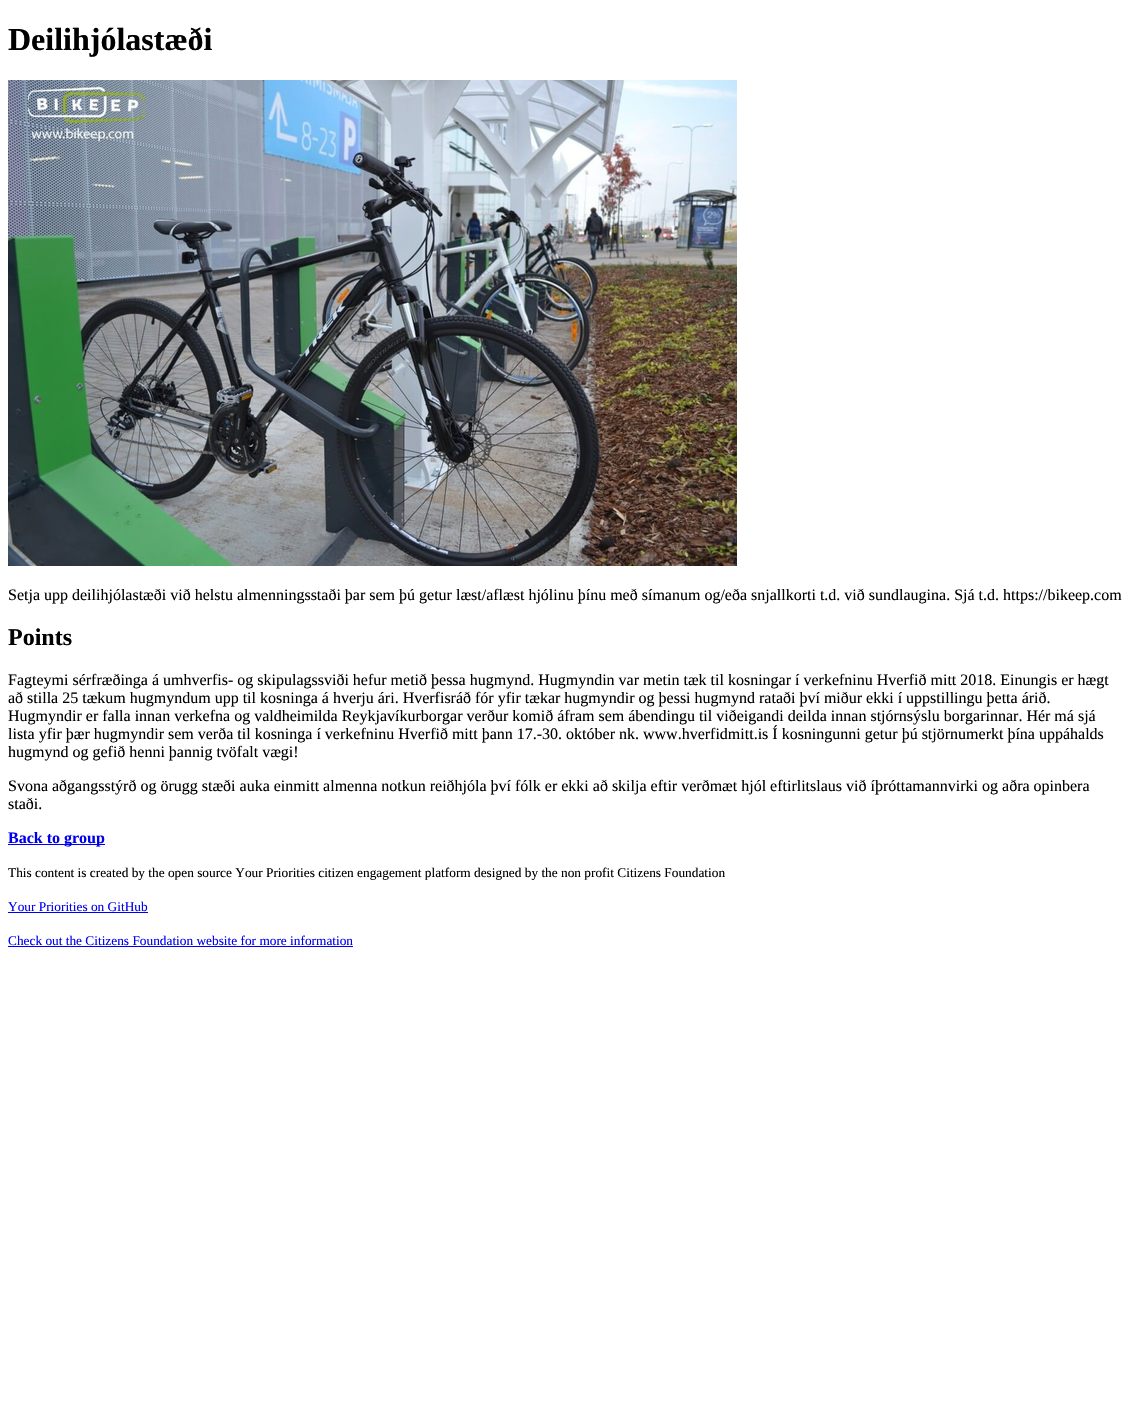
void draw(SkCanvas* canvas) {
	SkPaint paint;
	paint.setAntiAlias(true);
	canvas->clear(0xffffffff);
	SkFont f1(fontMgr->matchFamilyStyle("Liberation Serif", SkFontStyle::Bold()), 32);
	f1.setSubpixel(true);
	paint.setColor(0xff000000);
	canvas->drawString("Deilihjólastæði", 8, 50, f1, paint);
	canvas->drawImageRect(SkImages::DeferredFromEncodedData(SkData::MakeFromFileName("img1.png")), SkRect::MakeXYWH(8, 80, 729, 486), SkSamplingOptions());
	SkFont f2(fontMgr->matchFamilyStyle("Liberation Serif", SkFontStyle::Normal()), 16);
	f2.setSubpixel(true);
	canvas->drawString("Setja upp deilihjólastæði við helstu almenningsstaði þar sem þú getur læst/aflæst hjólinu þínu með símanum og/eða snjallkorti t.d. við sundlaugina. Sjá t.d. https://bikeep.com", 8, 600, f2, paint);
	SkFont f3(fontMgr->matchFamilyStyle("Liberation Serif", SkFontStyle::Bold()), 24);
	f3.setSubpixel(true);
	canvas->drawString("Points", 8, 645, f3, paint);
	canvas->drawString("Fagteymi sérfræðinga á umhverfis- og skipulagssviði hefur metið þessa hugmynd. Hugmyndin var metin tæk til kosningar í verkefninu Hverfið mitt 2018. Einungis er hægt", 8, 685, f2, paint);
	canvas->drawString("að stilla 25 tækum hugmyndum upp til kosninga á hverju ári. Hverfisráð fór yfir tækar hugmyndir og þessi hugmynd rataði því miður ekki í uppstillingu þetta árið.", 8, 703, f2, paint);
	canvas->drawString("Hugmyndir er falla innan verkefna og valdheimilda Reykjavíkurborgar verður komið áfram sem ábendingu til viðeigandi deilda innan stjórnsýslu borgarinnar. Hér má sjá", 8, 721, f2, paint);
	canvas->drawString("lista yfir þær hugmyndir sem verða til kosninga í verkefninu Hverfið mitt þann 17.-30. október nk. www.hverfidmitt.is Í kosningunni getur þú stjörnumerkt þína uppáhalds", 8, 739, f2, paint);
	canvas->drawString("hugmynd og gefið henni þannig tvöfalt vægi!", 8, 757, f2, paint);
	canvas->drawString("Svona aðgangsstýrð og örugg stæði auka einmitt almenna notkun reiðhjóla því fólk er ekki að skilja eftir verðmæt hjól eftirlitslaus við íþróttamannvirki og aðra opinbera", 8, 791, f2, paint);
	canvas->drawString("staði.", 8, 809, f2, paint);
	paint.setColor(0xff0000ee);
	canvas->drawRect(SkRect::MakeXYWH(8, 844, 97, 1), paint);
	SkFont f4(fontMgr->matchFamilyStyle("Liberation Serif", SkFontStyle::Bold()), 16);
	f4.setSubpixel(true);
	canvas->drawString("Back to group", 8, 843, f4, paint);
	SkFont f5(fontMgr->matchFamilyStyle("Liberation Serif", SkFontStyle::Normal()), 13.33);
	f5.setSubpixel(true);
	paint.setColor(0xff000000);
	canvas->drawString("This content is created by the open source Your Priorities citizen engagement platform designed by the non profit Citizens Foundation", 8, 877, f5, paint);
	paint.setColor(0xff0000ee);
	canvas->drawString("Your Priorities on GitHub", 8, 911, f5, paint);
	canvas->drawRect(SkRect::MakeXYWH(8, 912, 140, 1), paint);
	canvas->drawString("Check out the Citizens Foundation website for more information", 8, 945, f5, paint);
	canvas->drawRect(SkRect::MakeXYWH(8, 946, 345, 1), paint);
}
